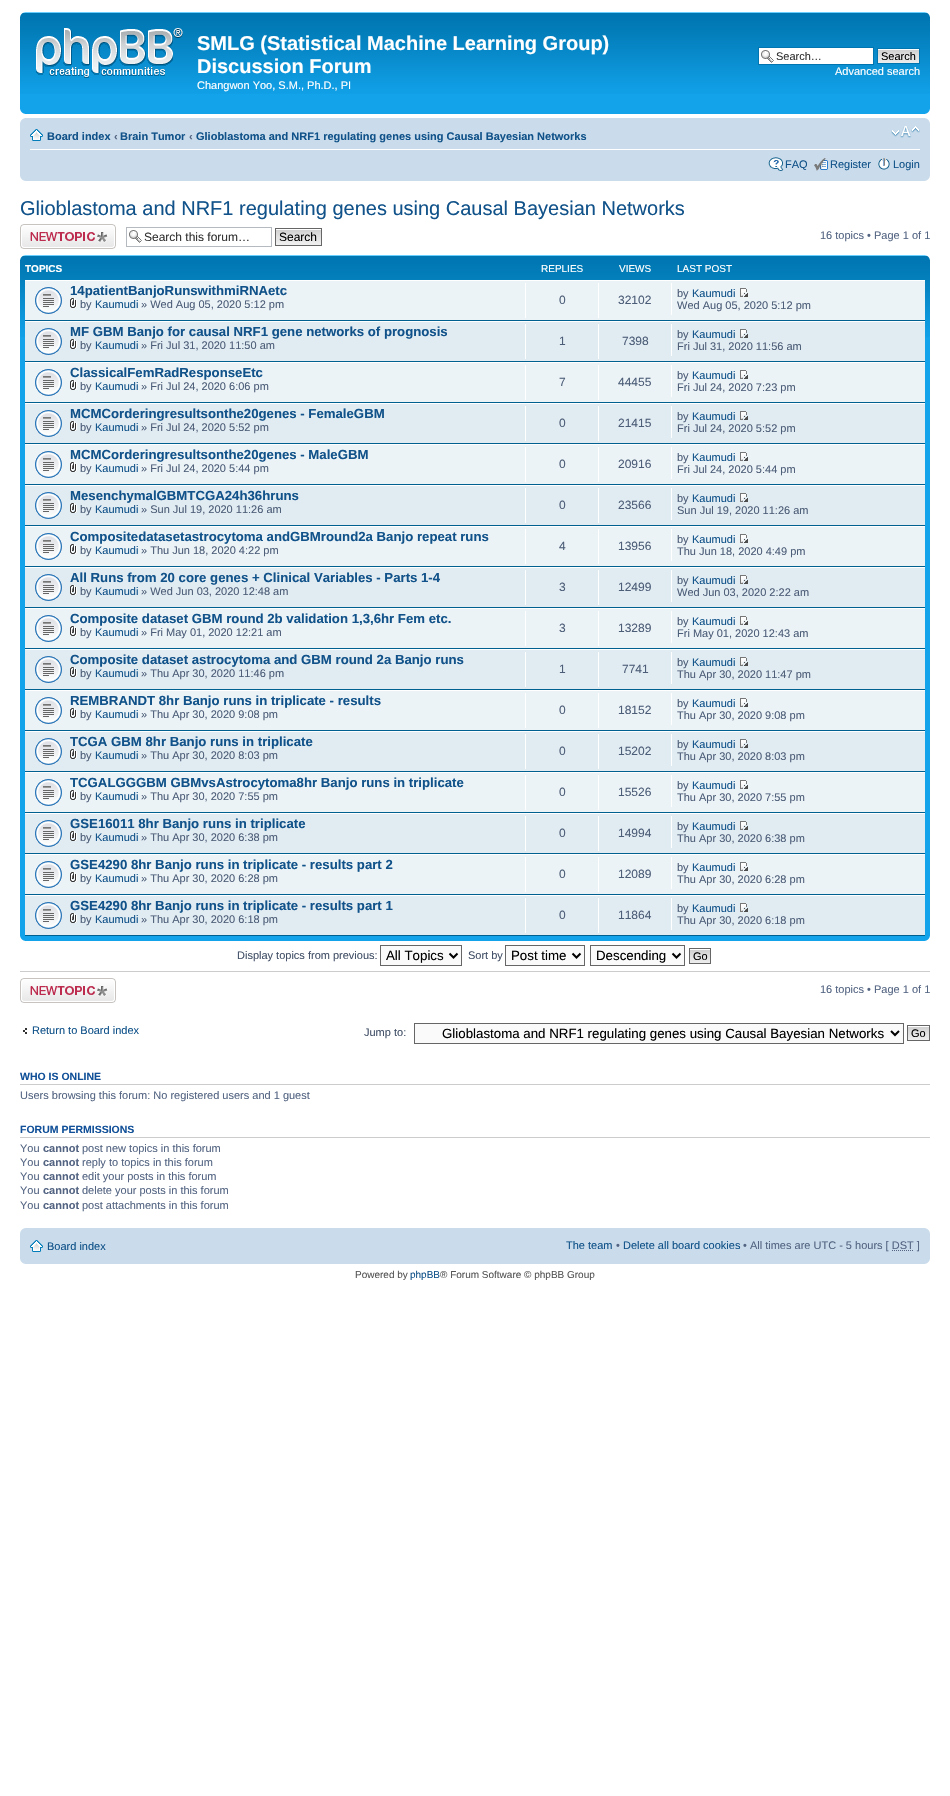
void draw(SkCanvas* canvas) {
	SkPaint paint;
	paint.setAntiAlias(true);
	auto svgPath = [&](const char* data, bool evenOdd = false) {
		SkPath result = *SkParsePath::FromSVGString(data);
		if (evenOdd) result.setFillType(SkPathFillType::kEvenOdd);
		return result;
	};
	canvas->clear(0xffffffff);
	paint.setColor(0xff12a3eb);
	canvas->drawRect(SkRect::MakeXYWH(20, 94, 910, 20), paint);
	canvas->drawImageRect(SkImages::DeferredFromEncodedData(SkData::MakeFromFileName("img1.png")), SkRect::MakeXYWH(20, 12, 910, 82), SkSamplingOptions());
	canvas->drawImageRect(SkImages::DeferredFromEncodedData(SkData::MakeFromFileName("img2.png")), SkRect::MakeXYWH(20, 12, 5, 5), SkSamplingOptions());
	canvas->drawImageRect(SkImages::DeferredFromEncodedData(SkData::MakeFromFileName("img3.png")), SkRect::MakeXYWH(925, 12, 5, 5), SkSamplingOptions());
	canvas->drawImageRect(SkImages::DeferredFromEncodedData(SkData::MakeFromFileName("img4.png")), SkRect::MakeXYWH(36, 28, 147, 50), SkSamplingOptions());
	SkFont f1(fontMgr->matchFamilyStyle("Liberation Sans", SkFontStyle::Bold()), 20);
	f1.setSubpixel(true);
	paint.setColor(0xffffffff);
	canvas->drawString("SMLG (Statistical Machine Learning Group)", 197, 50, f1, paint);
	canvas->drawString("Discussion Forum", 197, 73, f1, paint);
	SkFont f2(fontMgr->matchFamilyStyle("Liberation Sans", SkFontStyle::Normal()), 11);
	f2.setSubpixel(true);
	canvas->drawString("Changwon Yoo, S.M., Ph.D., PI", 197, 89, f2, paint);
	canvas->drawRect(SkRect::MakeXYWH(759, 48, 114, 16), paint);
	canvas->drawImageRect(SkImages::DeferredFromEncodedData(SkData::MakeFromFileName("img5.png")), SkRect::MakeXYWH(761, 50, 13, 13), SkSamplingOptions());
	paint.setStroke(true);
	paint.setStrokeWidth(1);
	paint.setColor(0xff0075b0);
	canvas->drawRect(SkRect::MakeXYWH(758.5, 47.5, 115, 17), paint);
	paint.setStroke(false);
	paint.setColor(0xff333333);
	canvas->drawString("Search…", 776, 60, f2, paint);
	canvas->drawImageRect(SkImages::DeferredFromEncodedData(SkData::MakeFromFileName("img6.png")), SkRect::MakeXYWH(878, 49, 41, 14), SkSamplingOptions());
	paint.setStroke(true);
	paint.setColor(0xff0075b0);
	canvas->drawRect(SkRect::MakeXYWH(877.5, 48.5, 42, 15), paint);
	paint.setStroke(false);
	paint.setColor(0xff000000);
	canvas->drawString("Search", 881, 60, f2, paint);
	paint.setColor(0xffffffff);
	canvas->drawString("Advanced search", 835, 75, f2, paint);
	canvas->drawImageRect(SkImages::DeferredFromEncodedData(SkData::MakeFromFileName("img7.png")), SkRect::MakeXYWH(20, 109, 5, 5), SkSamplingOptions());
	canvas->drawImageRect(SkImages::DeferredFromEncodedData(SkData::MakeFromFileName("img8.png")), SkRect::MakeXYWH(925, 109, 5, 5), SkSamplingOptions());
	paint.setColor(0xffcadceb);
	canvas->drawRect(SkRect::MakeXYWH(20, 118, 910, 63), paint);
	canvas->drawImageRect(SkImages::DeferredFromEncodedData(SkData::MakeFromFileName("img9.png")), SkRect::MakeXYWH(20, 118, 5, 5), SkSamplingOptions());
	canvas->drawImageRect(SkImages::DeferredFromEncodedData(SkData::MakeFromFileName("img10.png")), SkRect::MakeXYWH(925, 118, 5, 5), SkSamplingOptions());
	paint.setColor(0xffffffff);
	canvas->drawRect(SkRect::MakeXYWH(30, 149, 890, 1), paint);
	canvas->drawImageRect(SkImages::DeferredFromEncodedData(SkData::MakeFromFileName("img11.png")), SkRect::MakeXYWH(30, 129, 13, 12), SkSamplingOptions());
	SkFont f3(fontMgr->matchFamilyStyle("Liberation Sans", SkFontStyle::Bold()), 11);
	f3.setSubpixel(true);
	paint.setColor(0xff105289);
	canvas->drawString("Board index", 47, 140, f3, paint);
	paint.setColor(0xff536482);
	canvas->drawString("‹", 114, 140, f3, paint);
	paint.setColor(0xff105289);
	canvas->drawString("Brain Tumor", 120, 140, f3, paint);
	paint.setColor(0xff536482);
	canvas->drawString("‹", 189, 140, f3, paint);
	paint.setColor(0xff105289);
	canvas->drawString("Glioblastoma and NRF1 regulating genes using Causal Bayesian Networks", 196, 140, f3, paint);
	canvas->drawImageRect(SkImages::DeferredFromEncodedData(SkData::MakeFromFileName("img12.png")), SkRect::MakeXYWH(891, 126, 29, 12), SkSamplingOptions());
	canvas->drawImageRect(SkImages::DeferredFromEncodedData(SkData::MakeFromFileName("img13.png")), SkRect::MakeXYWH(768, 157, 16, 14), SkSamplingOptions());
	canvas->drawString("FAQ", 785, 168, f2, paint);
	canvas->drawImageRect(SkImages::DeferredFromEncodedData(SkData::MakeFromFileName("img14.png")), SkRect::MakeXYWH(814, 158, 14, 13), SkSamplingOptions());
	canvas->drawString("Register", 830, 168, f2, paint);
	canvas->drawImageRect(SkImages::DeferredFromEncodedData(SkData::MakeFromFileName("img15.png")), SkRect::MakeXYWH(878, 158, 12, 12), SkSamplingOptions());
	canvas->drawString("Login", 893, 168, f2, paint);
	canvas->drawImageRect(SkImages::DeferredFromEncodedData(SkData::MakeFromFileName("img16.png")), SkRect::MakeXYWH(20, 176, 5, 5), SkSamplingOptions());
	canvas->drawImageRect(SkImages::DeferredFromEncodedData(SkData::MakeFromFileName("img17.png")), SkRect::MakeXYWH(925, 176, 5, 5), SkSamplingOptions());
	SkFont f4(fontMgr->matchFamilyStyle("Liberation Sans", SkFontStyle::Normal()), 20);
	f4.setSubpixel(true);
	canvas->drawString("Glioblastoma and NRF1 regulating genes using Causal Bayesian Networks", 20, 215, f4, paint);
	canvas->drawImageRect(SkImages::DeferredFromEncodedData(SkData::MakeFromFileName("img18.png")), SkRect::MakeXYWH(20, 224, 96, 25), SkSamplingOptions());
	canvas->drawImageRect(SkImages::DeferredFromEncodedData(SkData::MakeFromFileName("img5.png")), SkRect::MakeXYWH(129, 230, 13, 13), SkSamplingOptions());
	paint.setStroke(true);
	paint.setColor(0xffb4bac0);
	canvas->drawRect(SkRect::MakeXYWH(126.5, 227.5, 145, 19), paint);
	SkFont f5(fontMgr->matchFamilyStyle("Liberation Sans", SkFontStyle::Normal()), 12);
	f5.setSubpixel(true);
	paint.setStroke(false);
	paint.setColor(0xff333333);
	canvas->drawString("Search this forum…", 144, 241, f5, paint);
	canvas->drawImageRect(SkImages::DeferredFromEncodedData(SkData::MakeFromFileName("img19.png")), SkRect::MakeXYWH(276, 229, 45, 16), SkSamplingOptions());
	paint.setStroke(true);
	paint.setColor(0xff666666);
	canvas->drawRect(SkRect::MakeXYWH(275.5, 228.5, 46, 17), paint);
	paint.setStroke(false);
	paint.setColor(0xff000000);
	canvas->drawString("Search", 279, 241, f5, paint);
	paint.setColor(0xff536482);
	canvas->drawString("16 topics • Page 1 of 1", 820, 239, f2, paint);
	paint.setColor(0xff12a3eb);
	canvas->drawRect(SkRect::MakeXYWH(20, 337, 910, 604), paint);
	canvas->drawImageRect(SkImages::DeferredFromEncodedData(SkData::MakeFromFileName("img1.png")), SkRect::MakeXYWH(20, 255, 910, 82), SkSamplingOptions());
	canvas->drawImageRect(SkImages::DeferredFromEncodedData(SkData::MakeFromFileName("img2.png")), SkRect::MakeXYWH(20, 255, 5, 5), SkSamplingOptions());
	canvas->drawImageRect(SkImages::DeferredFromEncodedData(SkData::MakeFromFileName("img3.png")), SkRect::MakeXYWH(925, 255, 5, 5), SkSamplingOptions());
	SkFont f6(fontMgr->matchFamilyStyle("Liberation Sans", SkFontStyle::Bold()), 10);
	f6.setSubpixel(true);
	paint.setColor(0xffffffff);
	canvas->drawString("TOPICS", 25, 272, f6, paint);
	SkFont f7(fontMgr->matchFamilyStyle("Liberation Sans", SkFontStyle::Normal()), 10);
	f7.setSubpixel(true);
	canvas->drawString("REPLIES", 541, 272, f7, paint);
	canvas->drawString("VIEWS", 619, 272, f7, paint);
	canvas->drawString("LAST POST", 677, 272, f7, paint);
	paint.setColor(0xffecf3f7);
	canvas->drawRect(SkRect::MakeXYWH(25, 281, 900, 39), paint);
	paint.setColor(0xffffffff);
	canvas->drawRect(SkRect::MakeXYWH(25, 280, 900, 1), paint);
	paint.setColor(0xff00608f);
	canvas->drawRect(SkRect::MakeXYWH(25, 320, 900, 1), paint);
	canvas->drawImageRect(SkImages::DeferredFromEncodedData(SkData::MakeFromFileName("img20.png")), SkRect::MakeXYWH(35, 287, 27, 27), SkSamplingOptions());
	SkFont f8(fontMgr->matchFamilyStyle("Liberation Sans", SkFontStyle::Bold()), 13.2);
	f8.setSubpixel(true);
	paint.setColor(0xff105289);
	canvas->drawString("14patientBanjoRunswithmiRNAetc", 70, 295, f8, paint);
	canvas->drawImageRect(SkImages::DeferredFromEncodedData(SkData::MakeFromFileName("img21.png")), SkRect::MakeXYWH(70, 298, 7, 10), SkSamplingOptions());
	paint.setColor(0xff4c5d77);
	canvas->drawString("by", 80, 308, f2, paint);
	paint.setColor(0xff105289);
	canvas->drawString("Kaumudi", 95, 308, f2, paint);
	paint.setColor(0xff4c5d77);
	canvas->drawString("» Wed Aug 05, 2020 5:12 pm", 141, 308, f2, paint);
	paint.setColor(0xffffffff);
	canvas->drawRect(SkRect::MakeXYWH(525, 283, 1, 35), paint);
	paint.setColor(0xff4c5d77);
	canvas->drawString("0", 559, 304, f5, paint);
	paint.setColor(0xffffffff);
	canvas->drawRect(SkRect::MakeXYWH(598, 283, 1, 35), paint);
	paint.setColor(0xff4c5d77);
	canvas->drawString("32102", 618, 304, f5, paint);
	paint.setColor(0xffffffff);
	canvas->drawRect(SkRect::MakeXYWH(671, 283, 1, 32), paint);
	paint.setColor(0xff4c5d77);
	canvas->drawString("by", 677, 297, f2, paint);
	paint.setColor(0xff105289);
	canvas->drawString("Kaumudi", 692, 297, f2, paint);
	canvas->drawImageRect(SkImages::DeferredFromEncodedData(SkData::MakeFromFileName("img22.png")), SkRect::MakeXYWH(740, 288, 8, 9), SkSamplingOptions());
	paint.setColor(0xff4c5d77);
	canvas->drawString("Wed Aug 05, 2020 5:12 pm", 677, 309, f2, paint);
	paint.setColor(0xffe1ebf2);
	canvas->drawRect(SkRect::MakeXYWH(25, 322, 900, 39), paint);
	paint.setColor(0xffffffff);
	canvas->drawRect(SkRect::MakeXYWH(25, 321, 900, 1), paint);
	paint.setColor(0xff00608f);
	canvas->drawRect(SkRect::MakeXYWH(25, 361, 900, 1), paint);
	canvas->drawImageRect(SkImages::DeferredFromEncodedData(SkData::MakeFromFileName("img23.png")), SkRect::MakeXYWH(35, 328, 27, 27), SkSamplingOptions());
	paint.setColor(0xff105289);
	canvas->drawString("MF GBM Banjo for causal NRF1 gene networks of prognosis", 70, 336, f8, paint);
	canvas->drawImageRect(SkImages::DeferredFromEncodedData(SkData::MakeFromFileName("img24.png")), SkRect::MakeXYWH(70, 339, 7, 10), SkSamplingOptions());
	paint.setColor(0xff4c5d77);
	canvas->drawString("by", 80, 349, f2, paint);
	paint.setColor(0xff105289);
	canvas->drawString("Kaumudi", 95, 349, f2, paint);
	paint.setColor(0xff4c5d77);
	canvas->drawString("» Fri Jul 31, 2020 11:50 am", 141, 349, f2, paint);
	paint.setColor(0xffffffff);
	canvas->drawRect(SkRect::MakeXYWH(525, 324, 1, 35), paint);
	paint.setColor(0xff4c5d77);
	canvas->drawString("1", 559, 345, f5, paint);
	paint.setColor(0xffffffff);
	canvas->drawRect(SkRect::MakeXYWH(598, 324, 1, 35), paint);
	paint.setColor(0xff4c5d77);
	canvas->drawString("7398", 622, 345, f5, paint);
	paint.setColor(0xffffffff);
	canvas->drawRect(SkRect::MakeXYWH(671, 324, 1, 32), paint);
	paint.setColor(0xff4c5d77);
	canvas->drawString("by", 677, 338, f2, paint);
	paint.setColor(0xff105289);
	canvas->drawString("Kaumudi", 692, 338, f2, paint);
	canvas->drawImageRect(SkImages::DeferredFromEncodedData(SkData::MakeFromFileName("img25.png")), SkRect::MakeXYWH(740, 329, 8, 9), SkSamplingOptions());
	paint.setColor(0xff4c5d77);
	canvas->drawString("Fri Jul 31, 2020 11:56 am", 677, 350, f2, paint);
	paint.setColor(0xffecf3f7);
	canvas->drawRect(SkRect::MakeXYWH(25, 363, 900, 39), paint);
	paint.setColor(0xffffffff);
	canvas->drawRect(SkRect::MakeXYWH(25, 362, 900, 1), paint);
	paint.setColor(0xff00608f);
	canvas->drawRect(SkRect::MakeXYWH(25, 402, 900, 1), paint);
	canvas->drawImageRect(SkImages::DeferredFromEncodedData(SkData::MakeFromFileName("img20.png")), SkRect::MakeXYWH(35, 369, 27, 27), SkSamplingOptions());
	paint.setColor(0xff105289);
	canvas->drawString("ClassicalFemRadResponseEtc", 70, 377, f8, paint);
	canvas->drawImageRect(SkImages::DeferredFromEncodedData(SkData::MakeFromFileName("img21.png")), SkRect::MakeXYWH(70, 380, 7, 10), SkSamplingOptions());
	paint.setColor(0xff4c5d77);
	canvas->drawString("by", 80, 390, f2, paint);
	paint.setColor(0xff105289);
	canvas->drawString("Kaumudi", 95, 390, f2, paint);
	paint.setColor(0xff4c5d77);
	canvas->drawString("» Fri Jul 24, 2020 6:06 pm", 141, 390, f2, paint);
	paint.setColor(0xffffffff);
	canvas->drawRect(SkRect::MakeXYWH(525, 365, 1, 35), paint);
	paint.setColor(0xff4c5d77);
	canvas->drawString("7", 559, 386, f5, paint);
	paint.setColor(0xffffffff);
	canvas->drawRect(SkRect::MakeXYWH(598, 365, 1, 35), paint);
	paint.setColor(0xff4c5d77);
	canvas->drawString("44455", 618, 386, f5, paint);
	paint.setColor(0xffffffff);
	canvas->drawRect(SkRect::MakeXYWH(671, 365, 1, 32), paint);
	paint.setColor(0xff4c5d77);
	canvas->drawString("by", 677, 379, f2, paint);
	paint.setColor(0xff105289);
	canvas->drawString("Kaumudi", 692, 379, f2, paint);
	canvas->drawImageRect(SkImages::DeferredFromEncodedData(SkData::MakeFromFileName("img22.png")), SkRect::MakeXYWH(740, 370, 8, 9), SkSamplingOptions());
	paint.setColor(0xff4c5d77);
	canvas->drawString("Fri Jul 24, 2020 7:23 pm", 677, 391, f2, paint);
	paint.setColor(0xffe1ebf2);
	canvas->drawRect(SkRect::MakeXYWH(25, 404, 900, 39), paint);
	paint.setColor(0xffffffff);
	canvas->drawRect(SkRect::MakeXYWH(25, 403, 900, 1), paint);
	paint.setColor(0xff00608f);
	canvas->drawRect(SkRect::MakeXYWH(25, 443, 900, 1), paint);
	canvas->drawImageRect(SkImages::DeferredFromEncodedData(SkData::MakeFromFileName("img23.png")), SkRect::MakeXYWH(35, 410, 27, 27), SkSamplingOptions());
	paint.setColor(0xff105289);
	canvas->drawString("MCMCorderingresultsonthe20genes - FemaleGBM", 70, 418, f8, paint);
	canvas->drawImageRect(SkImages::DeferredFromEncodedData(SkData::MakeFromFileName("img24.png")), SkRect::MakeXYWH(70, 421, 7, 10), SkSamplingOptions());
	paint.setColor(0xff4c5d77);
	canvas->drawString("by", 80, 431, f2, paint);
	paint.setColor(0xff105289);
	canvas->drawString("Kaumudi", 95, 431, f2, paint);
	paint.setColor(0xff4c5d77);
	canvas->drawString("» Fri Jul 24, 2020 5:52 pm", 141, 431, f2, paint);
	paint.setColor(0xffffffff);
	canvas->drawRect(SkRect::MakeXYWH(525, 406, 1, 35), paint);
	paint.setColor(0xff4c5d77);
	canvas->drawString("0", 559, 427, f5, paint);
	paint.setColor(0xffffffff);
	canvas->drawRect(SkRect::MakeXYWH(598, 406, 1, 35), paint);
	paint.setColor(0xff4c5d77);
	canvas->drawString("21415", 618, 427, f5, paint);
	paint.setColor(0xffffffff);
	canvas->drawRect(SkRect::MakeXYWH(671, 406, 1, 32), paint);
	paint.setColor(0xff4c5d77);
	canvas->drawString("by", 677, 420, f2, paint);
	paint.setColor(0xff105289);
	canvas->drawString("Kaumudi", 692, 420, f2, paint);
	canvas->drawImageRect(SkImages::DeferredFromEncodedData(SkData::MakeFromFileName("img25.png")), SkRect::MakeXYWH(740, 411, 8, 9), SkSamplingOptions());
	paint.setColor(0xff4c5d77);
	canvas->drawString("Fri Jul 24, 2020 5:52 pm", 677, 432, f2, paint);
	paint.setColor(0xffecf3f7);
	canvas->drawRect(SkRect::MakeXYWH(25, 445, 900, 39), paint);
	paint.setColor(0xffffffff);
	canvas->drawRect(SkRect::MakeXYWH(25, 444, 900, 1), paint);
	paint.setColor(0xff00608f);
	canvas->drawRect(SkRect::MakeXYWH(25, 484, 900, 1), paint);
	canvas->drawImageRect(SkImages::DeferredFromEncodedData(SkData::MakeFromFileName("img20.png")), SkRect::MakeXYWH(35, 451, 27, 27), SkSamplingOptions());
	paint.setColor(0xff105289);
	canvas->drawString("MCMCorderingresultsonthe20genes - MaleGBM", 70, 459, f8, paint);
	canvas->drawImageRect(SkImages::DeferredFromEncodedData(SkData::MakeFromFileName("img21.png")), SkRect::MakeXYWH(70, 462, 7, 10), SkSamplingOptions());
	paint.setColor(0xff4c5d77);
	canvas->drawString("by", 80, 472, f2, paint);
	paint.setColor(0xff105289);
	canvas->drawString("Kaumudi", 95, 472, f2, paint);
	paint.setColor(0xff4c5d77);
	canvas->drawString("» Fri Jul 24, 2020 5:44 pm", 141, 472, f2, paint);
	paint.setColor(0xffffffff);
	canvas->drawRect(SkRect::MakeXYWH(525, 447, 1, 35), paint);
	paint.setColor(0xff4c5d77);
	canvas->drawString("0", 559, 468, f5, paint);
	paint.setColor(0xffffffff);
	canvas->drawRect(SkRect::MakeXYWH(598, 447, 1, 35), paint);
	paint.setColor(0xff4c5d77);
	canvas->drawString("20916", 618, 468, f5, paint);
	paint.setColor(0xffffffff);
	canvas->drawRect(SkRect::MakeXYWH(671, 447, 1, 32), paint);
	paint.setColor(0xff4c5d77);
	canvas->drawString("by", 677, 461, f2, paint);
	paint.setColor(0xff105289);
	canvas->drawString("Kaumudi", 692, 461, f2, paint);
	canvas->drawImageRect(SkImages::DeferredFromEncodedData(SkData::MakeFromFileName("img22.png")), SkRect::MakeXYWH(740, 452, 8, 9), SkSamplingOptions());
	paint.setColor(0xff4c5d77);
	canvas->drawString("Fri Jul 24, 2020 5:44 pm", 677, 473, f2, paint);
	paint.setColor(0xffe1ebf2);
	canvas->drawRect(SkRect::MakeXYWH(25, 486, 900, 39), paint);
	paint.setColor(0xffffffff);
	canvas->drawRect(SkRect::MakeXYWH(25, 485, 900, 1), paint);
	paint.setColor(0xff00608f);
	canvas->drawRect(SkRect::MakeXYWH(25, 525, 900, 1), paint);
	canvas->drawImageRect(SkImages::DeferredFromEncodedData(SkData::MakeFromFileName("img23.png")), SkRect::MakeXYWH(35, 492, 27, 27), SkSamplingOptions());
	paint.setColor(0xff105289);
	canvas->drawString("MesenchymalGBMTCGA24h36hruns", 70, 500, f8, paint);
	canvas->drawImageRect(SkImages::DeferredFromEncodedData(SkData::MakeFromFileName("img24.png")), SkRect::MakeXYWH(70, 503, 7, 10), SkSamplingOptions());
	paint.setColor(0xff4c5d77);
	canvas->drawString("by", 80, 513, f2, paint);
	paint.setColor(0xff105289);
	canvas->drawString("Kaumudi", 95, 513, f2, paint);
	paint.setColor(0xff4c5d77);
	canvas->drawString("» Sun Jul 19, 2020 11:26 am", 141, 513, f2, paint);
	paint.setColor(0xffffffff);
	canvas->drawRect(SkRect::MakeXYWH(525, 488, 1, 35), paint);
	paint.setColor(0xff4c5d77);
	canvas->drawString("0", 559, 509, f5, paint);
	paint.setColor(0xffffffff);
	canvas->drawRect(SkRect::MakeXYWH(598, 488, 1, 35), paint);
	paint.setColor(0xff4c5d77);
	canvas->drawString("23566", 618, 509, f5, paint);
	paint.setColor(0xffffffff);
	canvas->drawRect(SkRect::MakeXYWH(671, 488, 1, 32), paint);
	paint.setColor(0xff4c5d77);
	canvas->drawString("by", 677, 502, f2, paint);
	paint.setColor(0xff105289);
	canvas->drawString("Kaumudi", 692, 502, f2, paint);
	canvas->drawImageRect(SkImages::DeferredFromEncodedData(SkData::MakeFromFileName("img25.png")), SkRect::MakeXYWH(740, 493, 8, 9), SkSamplingOptions());
	paint.setColor(0xff4c5d77);
	canvas->drawString("Sun Jul 19, 2020 11:26 am", 677, 514, f2, paint);
	paint.setColor(0xffecf3f7);
	canvas->drawRect(SkRect::MakeXYWH(25, 527, 900, 39), paint);
	paint.setColor(0xffffffff);
	canvas->drawRect(SkRect::MakeXYWH(25, 526, 900, 1), paint);
	paint.setColor(0xff00608f);
	canvas->drawRect(SkRect::MakeXYWH(25, 566, 900, 1), paint);
	canvas->drawImageRect(SkImages::DeferredFromEncodedData(SkData::MakeFromFileName("img20.png")), SkRect::MakeXYWH(35, 533, 27, 27), SkSamplingOptions());
	paint.setColor(0xff105289);
	canvas->drawString("Compositedatasetastrocytoma andGBMround2a Banjo repeat runs", 70, 541, f8, paint);
	canvas->drawImageRect(SkImages::DeferredFromEncodedData(SkData::MakeFromFileName("img21.png")), SkRect::MakeXYWH(70, 544, 7, 10), SkSamplingOptions());
	paint.setColor(0xff4c5d77);
	canvas->drawString("by", 80, 554, f2, paint);
	paint.setColor(0xff105289);
	canvas->drawString("Kaumudi", 95, 554, f2, paint);
	paint.setColor(0xff4c5d77);
	canvas->drawString("» Thu Jun 18, 2020 4:22 pm", 141, 554, f2, paint);
	paint.setColor(0xffffffff);
	canvas->drawRect(SkRect::MakeXYWH(525, 529, 1, 35), paint);
	paint.setColor(0xff4c5d77);
	canvas->drawString("4", 559, 550, f5, paint);
	paint.setColor(0xffffffff);
	canvas->drawRect(SkRect::MakeXYWH(598, 529, 1, 35), paint);
	paint.setColor(0xff4c5d77);
	canvas->drawString("13956", 618, 550, f5, paint);
	paint.setColor(0xffffffff);
	canvas->drawRect(SkRect::MakeXYWH(671, 529, 1, 32), paint);
	paint.setColor(0xff4c5d77);
	canvas->drawString("by", 677, 543, f2, paint);
	paint.setColor(0xff105289);
	canvas->drawString("Kaumudi", 692, 543, f2, paint);
	canvas->drawImageRect(SkImages::DeferredFromEncodedData(SkData::MakeFromFileName("img22.png")), SkRect::MakeXYWH(740, 534, 8, 9), SkSamplingOptions());
	paint.setColor(0xff4c5d77);
	canvas->drawString("Thu Jun 18, 2020 4:49 pm", 677, 555, f2, paint);
	paint.setColor(0xffe1ebf2);
	canvas->drawRect(SkRect::MakeXYWH(25, 568, 900, 39), paint);
	paint.setColor(0xffffffff);
	canvas->drawRect(SkRect::MakeXYWH(25, 567, 900, 1), paint);
	paint.setColor(0xff00608f);
	canvas->drawRect(SkRect::MakeXYWH(25, 607, 900, 1), paint);
	canvas->drawImageRect(SkImages::DeferredFromEncodedData(SkData::MakeFromFileName("img23.png")), SkRect::MakeXYWH(35, 574, 27, 27), SkSamplingOptions());
	paint.setColor(0xff105289);
	canvas->drawString("All Runs from 20 core genes + Clinical Variables - Parts 1-4", 70, 582, f8, paint);
	canvas->drawImageRect(SkImages::DeferredFromEncodedData(SkData::MakeFromFileName("img24.png")), SkRect::MakeXYWH(70, 585, 7, 10), SkSamplingOptions());
	paint.setColor(0xff4c5d77);
	canvas->drawString("by", 80, 595, f2, paint);
	paint.setColor(0xff105289);
	canvas->drawString("Kaumudi", 95, 595, f2, paint);
	paint.setColor(0xff4c5d77);
	canvas->drawString("» Wed Jun 03, 2020 12:48 am", 141, 595, f2, paint);
	paint.setColor(0xffffffff);
	canvas->drawRect(SkRect::MakeXYWH(525, 570, 1, 35), paint);
	paint.setColor(0xff4c5d77);
	canvas->drawString("3", 559, 591, f5, paint);
	paint.setColor(0xffffffff);
	canvas->drawRect(SkRect::MakeXYWH(598, 570, 1, 35), paint);
	paint.setColor(0xff4c5d77);
	canvas->drawString("12499", 618, 591, f5, paint);
	paint.setColor(0xffffffff);
	canvas->drawRect(SkRect::MakeXYWH(671, 570, 1, 32), paint);
	paint.setColor(0xff4c5d77);
	canvas->drawString("by", 677, 584, f2, paint);
	paint.setColor(0xff105289);
	canvas->drawString("Kaumudi", 692, 584, f2, paint);
	canvas->drawImageRect(SkImages::DeferredFromEncodedData(SkData::MakeFromFileName("img25.png")), SkRect::MakeXYWH(740, 575, 8, 9), SkSamplingOptions());
	paint.setColor(0xff4c5d77);
	canvas->drawString("Wed Jun 03, 2020 2:22 am", 677, 596, f2, paint);
	paint.setColor(0xffecf3f7);
	canvas->drawRect(SkRect::MakeXYWH(25, 609, 900, 39), paint);
	paint.setColor(0xffffffff);
	canvas->drawRect(SkRect::MakeXYWH(25, 608, 900, 1), paint);
	paint.setColor(0xff00608f);
	canvas->drawRect(SkRect::MakeXYWH(25, 648, 900, 1), paint);
	canvas->drawImageRect(SkImages::DeferredFromEncodedData(SkData::MakeFromFileName("img20.png")), SkRect::MakeXYWH(35, 615, 27, 27), SkSamplingOptions());
	paint.setColor(0xff105289);
	canvas->drawString("Composite dataset GBM round 2b validation 1,3,6hr Fem etc.", 70, 623, f8, paint);
	canvas->drawImageRect(SkImages::DeferredFromEncodedData(SkData::MakeFromFileName("img21.png")), SkRect::MakeXYWH(70, 626, 7, 10), SkSamplingOptions());
	paint.setColor(0xff4c5d77);
	canvas->drawString("by", 80, 636, f2, paint);
	paint.setColor(0xff105289);
	canvas->drawString("Kaumudi", 95, 636, f2, paint);
	paint.setColor(0xff4c5d77);
	canvas->drawString("» Fri May 01, 2020 12:21 am", 141, 636, f2, paint);
	paint.setColor(0xffffffff);
	canvas->drawRect(SkRect::MakeXYWH(525, 611, 1, 35), paint);
	paint.setColor(0xff4c5d77);
	canvas->drawString("3", 559, 632, f5, paint);
	paint.setColor(0xffffffff);
	canvas->drawRect(SkRect::MakeXYWH(598, 611, 1, 35), paint);
	paint.setColor(0xff4c5d77);
	canvas->drawString("13289", 618, 632, f5, paint);
	paint.setColor(0xffffffff);
	canvas->drawRect(SkRect::MakeXYWH(671, 611, 1, 32), paint);
	paint.setColor(0xff4c5d77);
	canvas->drawString("by", 677, 625, f2, paint);
	paint.setColor(0xff105289);
	canvas->drawString("Kaumudi", 692, 625, f2, paint);
	canvas->drawImageRect(SkImages::DeferredFromEncodedData(SkData::MakeFromFileName("img22.png")), SkRect::MakeXYWH(740, 616, 8, 9), SkSamplingOptions());
	paint.setColor(0xff4c5d77);
	canvas->drawString("Fri May 01, 2020 12:43 am", 677, 637, f2, paint);
	paint.setColor(0xffe1ebf2);
	canvas->drawRect(SkRect::MakeXYWH(25, 650, 900, 39), paint);
	paint.setColor(0xffffffff);
	canvas->drawRect(SkRect::MakeXYWH(25, 649, 900, 1), paint);
	paint.setColor(0xff00608f);
	canvas->drawRect(SkRect::MakeXYWH(25, 689, 900, 1), paint);
	canvas->drawImageRect(SkImages::DeferredFromEncodedData(SkData::MakeFromFileName("img23.png")), SkRect::MakeXYWH(35, 656, 27, 27), SkSamplingOptions());
	paint.setColor(0xff105289);
	canvas->drawString("Composite dataset astrocytoma and GBM round 2a Banjo runs", 70, 664, f8, paint);
	canvas->drawImageRect(SkImages::DeferredFromEncodedData(SkData::MakeFromFileName("img24.png")), SkRect::MakeXYWH(70, 667, 7, 10), SkSamplingOptions());
	paint.setColor(0xff4c5d77);
	canvas->drawString("by", 80, 677, f2, paint);
	paint.setColor(0xff105289);
	canvas->drawString("Kaumudi", 95, 677, f2, paint);
	paint.setColor(0xff4c5d77);
	canvas->drawString("» Thu Apr 30, 2020 11:46 pm", 141, 677, f2, paint);
	paint.setColor(0xffffffff);
	canvas->drawRect(SkRect::MakeXYWH(525, 652, 1, 35), paint);
	paint.setColor(0xff4c5d77);
	canvas->drawString("1", 559, 673, f5, paint);
	paint.setColor(0xffffffff);
	canvas->drawRect(SkRect::MakeXYWH(598, 652, 1, 35), paint);
	paint.setColor(0xff4c5d77);
	canvas->drawString("7741", 622, 673, f5, paint);
	paint.setColor(0xffffffff);
	canvas->drawRect(SkRect::MakeXYWH(671, 652, 1, 32), paint);
	paint.setColor(0xff4c5d77);
	canvas->drawString("by", 677, 666, f2, paint);
	paint.setColor(0xff105289);
	canvas->drawString("Kaumudi", 692, 666, f2, paint);
	canvas->drawImageRect(SkImages::DeferredFromEncodedData(SkData::MakeFromFileName("img25.png")), SkRect::MakeXYWH(740, 657, 8, 9), SkSamplingOptions());
	paint.setColor(0xff4c5d77);
	canvas->drawString("Thu Apr 30, 2020 11:47 pm", 677, 678, f2, paint);
	paint.setColor(0xffecf3f7);
	canvas->drawRect(SkRect::MakeXYWH(25, 691, 900, 39), paint);
	paint.setColor(0xffffffff);
	canvas->drawRect(SkRect::MakeXYWH(25, 690, 900, 1), paint);
	paint.setColor(0xff00608f);
	canvas->drawRect(SkRect::MakeXYWH(25, 730, 900, 1), paint);
	canvas->drawImageRect(SkImages::DeferredFromEncodedData(SkData::MakeFromFileName("img20.png")), SkRect::MakeXYWH(35, 697, 27, 27), SkSamplingOptions());
	paint.setColor(0xff105289);
	canvas->drawString("REMBRANDT 8hr Banjo runs in triplicate - results", 70, 705, f8, paint);
	canvas->drawImageRect(SkImages::DeferredFromEncodedData(SkData::MakeFromFileName("img21.png")), SkRect::MakeXYWH(70, 708, 7, 10), SkSamplingOptions());
	paint.setColor(0xff4c5d77);
	canvas->drawString("by", 80, 718, f2, paint);
	paint.setColor(0xff105289);
	canvas->drawString("Kaumudi", 95, 718, f2, paint);
	paint.setColor(0xff4c5d77);
	canvas->drawString("» Thu Apr 30, 2020 9:08 pm", 141, 718, f2, paint);
	paint.setColor(0xffffffff);
	canvas->drawRect(SkRect::MakeXYWH(525, 693, 1, 35), paint);
	paint.setColor(0xff4c5d77);
	canvas->drawString("0", 559, 714, f5, paint);
	paint.setColor(0xffffffff);
	canvas->drawRect(SkRect::MakeXYWH(598, 693, 1, 35), paint);
	paint.setColor(0xff4c5d77);
	canvas->drawString("18152", 618, 714, f5, paint);
	paint.setColor(0xffffffff);
	canvas->drawRect(SkRect::MakeXYWH(671, 693, 1, 32), paint);
	paint.setColor(0xff4c5d77);
	canvas->drawString("by", 677, 707, f2, paint);
	paint.setColor(0xff105289);
	canvas->drawString("Kaumudi", 692, 707, f2, paint);
	canvas->drawImageRect(SkImages::DeferredFromEncodedData(SkData::MakeFromFileName("img22.png")), SkRect::MakeXYWH(740, 698, 8, 9), SkSamplingOptions());
	paint.setColor(0xff4c5d77);
	canvas->drawString("Thu Apr 30, 2020 9:08 pm", 677, 719, f2, paint);
	paint.setColor(0xffe1ebf2);
	canvas->drawRect(SkRect::MakeXYWH(25, 732, 900, 39), paint);
	paint.setColor(0xffffffff);
	canvas->drawRect(SkRect::MakeXYWH(25, 731, 900, 1), paint);
	paint.setColor(0xff00608f);
	canvas->drawRect(SkRect::MakeXYWH(25, 771, 900, 1), paint);
	canvas->drawImageRect(SkImages::DeferredFromEncodedData(SkData::MakeFromFileName("img23.png")), SkRect::MakeXYWH(35, 738, 27, 27), SkSamplingOptions());
	paint.setColor(0xff105289);
	canvas->drawString("TCGA GBM 8hr Banjo runs in triplicate", 70, 746, f8, paint);
	canvas->drawImageRect(SkImages::DeferredFromEncodedData(SkData::MakeFromFileName("img24.png")), SkRect::MakeXYWH(70, 749, 7, 10), SkSamplingOptions());
	paint.setColor(0xff4c5d77);
	canvas->drawString("by", 80, 759, f2, paint);
	paint.setColor(0xff105289);
	canvas->drawString("Kaumudi", 95, 759, f2, paint);
	paint.setColor(0xff4c5d77);
	canvas->drawString("» Thu Apr 30, 2020 8:03 pm", 141, 759, f2, paint);
	paint.setColor(0xffffffff);
	canvas->drawRect(SkRect::MakeXYWH(525, 734, 1, 35), paint);
	paint.setColor(0xff4c5d77);
	canvas->drawString("0", 559, 755, f5, paint);
	paint.setColor(0xffffffff);
	canvas->drawRect(SkRect::MakeXYWH(598, 734, 1, 35), paint);
	paint.setColor(0xff4c5d77);
	canvas->drawString("15202", 618, 755, f5, paint);
	paint.setColor(0xffffffff);
	canvas->drawRect(SkRect::MakeXYWH(671, 734, 1, 32), paint);
	paint.setColor(0xff4c5d77);
	canvas->drawString("by", 677, 748, f2, paint);
	paint.setColor(0xff105289);
	canvas->drawString("Kaumudi", 692, 748, f2, paint);
	canvas->drawImageRect(SkImages::DeferredFromEncodedData(SkData::MakeFromFileName("img25.png")), SkRect::MakeXYWH(740, 739, 8, 9), SkSamplingOptions());
	paint.setColor(0xff4c5d77);
	canvas->drawString("Thu Apr 30, 2020 8:03 pm", 677, 760, f2, paint);
	paint.setColor(0xffecf3f7);
	canvas->drawRect(SkRect::MakeXYWH(25, 773, 900, 39), paint);
	paint.setColor(0xffffffff);
	canvas->drawRect(SkRect::MakeXYWH(25, 772, 900, 1), paint);
	paint.setColor(0xff00608f);
	canvas->drawRect(SkRect::MakeXYWH(25, 812, 900, 1), paint);
	canvas->drawImageRect(SkImages::DeferredFromEncodedData(SkData::MakeFromFileName("img20.png")), SkRect::MakeXYWH(35, 779, 27, 27), SkSamplingOptions());
	paint.setColor(0xff105289);
	canvas->drawString("TCGALGGGBM GBMvsAstrocytoma8hr Banjo runs in triplicate", 70, 787, f8, paint);
	canvas->drawImageRect(SkImages::DeferredFromEncodedData(SkData::MakeFromFileName("img21.png")), SkRect::MakeXYWH(70, 790, 7, 10), SkSamplingOptions());
	paint.setColor(0xff4c5d77);
	canvas->drawString("by", 80, 800, f2, paint);
	paint.setColor(0xff105289);
	canvas->drawString("Kaumudi", 95, 800, f2, paint);
	paint.setColor(0xff4c5d77);
	canvas->drawString("» Thu Apr 30, 2020 7:55 pm", 141, 800, f2, paint);
	paint.setColor(0xffffffff);
	canvas->drawRect(SkRect::MakeXYWH(525, 775, 1, 35), paint);
	paint.setColor(0xff4c5d77);
	canvas->drawString("0", 559, 796, f5, paint);
	paint.setColor(0xffffffff);
	canvas->drawRect(SkRect::MakeXYWH(598, 775, 1, 35), paint);
	paint.setColor(0xff4c5d77);
	canvas->drawString("15526", 618, 796, f5, paint);
	paint.setColor(0xffffffff);
	canvas->drawRect(SkRect::MakeXYWH(671, 775, 1, 32), paint);
	paint.setColor(0xff4c5d77);
	canvas->drawString("by", 677, 789, f2, paint);
	paint.setColor(0xff105289);
	canvas->drawString("Kaumudi", 692, 789, f2, paint);
	canvas->drawImageRect(SkImages::DeferredFromEncodedData(SkData::MakeFromFileName("img22.png")), SkRect::MakeXYWH(740, 780, 8, 9), SkSamplingOptions());
	paint.setColor(0xff4c5d77);
	canvas->drawString("Thu Apr 30, 2020 7:55 pm", 677, 801, f2, paint);
	paint.setColor(0xffe1ebf2);
	canvas->drawRect(SkRect::MakeXYWH(25, 814, 900, 39), paint);
	paint.setColor(0xffffffff);
	canvas->drawRect(SkRect::MakeXYWH(25, 813, 900, 1), paint);
	paint.setColor(0xff00608f);
	canvas->drawRect(SkRect::MakeXYWH(25, 853, 900, 1), paint);
	canvas->drawImageRect(SkImages::DeferredFromEncodedData(SkData::MakeFromFileName("img23.png")), SkRect::MakeXYWH(35, 820, 27, 27), SkSamplingOptions());
	paint.setColor(0xff105289);
	canvas->drawString("GSE16011 8hr Banjo runs in triplicate", 70, 828, f8, paint);
	canvas->drawImageRect(SkImages::DeferredFromEncodedData(SkData::MakeFromFileName("img24.png")), SkRect::MakeXYWH(70, 831, 7, 10), SkSamplingOptions());
	paint.setColor(0xff4c5d77);
	canvas->drawString("by", 80, 841, f2, paint);
	paint.setColor(0xff105289);
	canvas->drawString("Kaumudi", 95, 841, f2, paint);
	paint.setColor(0xff4c5d77);
	canvas->drawString("» Thu Apr 30, 2020 6:38 pm", 141, 841, f2, paint);
	paint.setColor(0xffffffff);
	canvas->drawRect(SkRect::MakeXYWH(525, 816, 1, 35), paint);
	paint.setColor(0xff4c5d77);
	canvas->drawString("0", 559, 837, f5, paint);
	paint.setColor(0xffffffff);
	canvas->drawRect(SkRect::MakeXYWH(598, 816, 1, 35), paint);
	paint.setColor(0xff4c5d77);
	canvas->drawString("14994", 618, 837, f5, paint);
	paint.setColor(0xffffffff);
	canvas->drawRect(SkRect::MakeXYWH(671, 816, 1, 32), paint);
	paint.setColor(0xff4c5d77);
	canvas->drawString("by", 677, 830, f2, paint);
	paint.setColor(0xff105289);
	canvas->drawString("Kaumudi", 692, 830, f2, paint);
	canvas->drawImageRect(SkImages::DeferredFromEncodedData(SkData::MakeFromFileName("img25.png")), SkRect::MakeXYWH(740, 821, 8, 9), SkSamplingOptions());
	paint.setColor(0xff4c5d77);
	canvas->drawString("Thu Apr 30, 2020 6:38 pm", 677, 842, f2, paint);
	paint.setColor(0xffecf3f7);
	canvas->drawRect(SkRect::MakeXYWH(25, 855, 900, 39), paint);
	paint.setColor(0xffffffff);
	canvas->drawRect(SkRect::MakeXYWH(25, 854, 900, 1), paint);
	paint.setColor(0xff00608f);
	canvas->drawRect(SkRect::MakeXYWH(25, 894, 900, 1), paint);
	canvas->drawImageRect(SkImages::DeferredFromEncodedData(SkData::MakeFromFileName("img20.png")), SkRect::MakeXYWH(35, 861, 27, 27), SkSamplingOptions());
	paint.setColor(0xff105289);
	canvas->drawString("GSE4290 8hr Banjo runs in triplicate - results part 2", 70, 869, f8, paint);
	canvas->drawImageRect(SkImages::DeferredFromEncodedData(SkData::MakeFromFileName("img21.png")), SkRect::MakeXYWH(70, 872, 7, 10), SkSamplingOptions());
	paint.setColor(0xff4c5d77);
	canvas->drawString("by", 80, 882, f2, paint);
	paint.setColor(0xff105289);
	canvas->drawString("Kaumudi", 95, 882, f2, paint);
	paint.setColor(0xff4c5d77);
	canvas->drawString("» Thu Apr 30, 2020 6:28 pm", 141, 882, f2, paint);
	paint.setColor(0xffffffff);
	canvas->drawRect(SkRect::MakeXYWH(525, 857, 1, 35), paint);
	paint.setColor(0xff4c5d77);
	canvas->drawString("0", 559, 878, f5, paint);
	paint.setColor(0xffffffff);
	canvas->drawRect(SkRect::MakeXYWH(598, 857, 1, 35), paint);
	paint.setColor(0xff4c5d77);
	canvas->drawString("12089", 618, 878, f5, paint);
	paint.setColor(0xffffffff);
	canvas->drawRect(SkRect::MakeXYWH(671, 857, 1, 32), paint);
	paint.setColor(0xff4c5d77);
	canvas->drawString("by", 677, 871, f2, paint);
	paint.setColor(0xff105289);
	canvas->drawString("Kaumudi", 692, 871, f2, paint);
	canvas->drawImageRect(SkImages::DeferredFromEncodedData(SkData::MakeFromFileName("img22.png")), SkRect::MakeXYWH(740, 862, 8, 9), SkSamplingOptions());
	paint.setColor(0xff4c5d77);
	canvas->drawString("Thu Apr 30, 2020 6:28 pm", 677, 883, f2, paint);
	paint.setColor(0xffe1ebf2);
	canvas->drawRect(SkRect::MakeXYWH(25, 896, 900, 39), paint);
	paint.setColor(0xffffffff);
	canvas->drawRect(SkRect::MakeXYWH(25, 895, 900, 1), paint);
	paint.setColor(0xff00608f);
	canvas->drawRect(SkRect::MakeXYWH(25, 935, 900, 1), paint);
	canvas->drawImageRect(SkImages::DeferredFromEncodedData(SkData::MakeFromFileName("img23.png")), SkRect::MakeXYWH(35, 902, 27, 27), SkSamplingOptions());
	paint.setColor(0xff105289);
	canvas->drawString("GSE4290 8hr Banjo runs in triplicate - results part 1", 70, 910, f8, paint);
	canvas->drawImageRect(SkImages::DeferredFromEncodedData(SkData::MakeFromFileName("img24.png")), SkRect::MakeXYWH(70, 913, 7, 10), SkSamplingOptions());
	paint.setColor(0xff4c5d77);
	canvas->drawString("by", 80, 923, f2, paint);
	paint.setColor(0xff105289);
	canvas->drawString("Kaumudi", 95, 923, f2, paint);
	paint.setColor(0xff4c5d77);
	canvas->drawString("» Thu Apr 30, 2020 6:18 pm", 141, 923, f2, paint);
	paint.setColor(0xffffffff);
	canvas->drawRect(SkRect::MakeXYWH(525, 898, 1, 35), paint);
	paint.setColor(0xff4c5d77);
	canvas->drawString("0", 559, 919, f5, paint);
	paint.setColor(0xffffffff);
	canvas->drawRect(SkRect::MakeXYWH(598, 898, 1, 35), paint);
	paint.setColor(0xff4c5d77);
	canvas->drawString("11864", 618, 919, f5, paint);
	paint.setColor(0xffffffff);
	canvas->drawRect(SkRect::MakeXYWH(671, 898, 1, 32), paint);
	paint.setColor(0xff4c5d77);
	canvas->drawString("by", 677, 912, f2, paint);
	paint.setColor(0xff105289);
	canvas->drawString("Kaumudi", 692, 912, f2, paint);
	canvas->drawImageRect(SkImages::DeferredFromEncodedData(SkData::MakeFromFileName("img25.png")), SkRect::MakeXYWH(740, 903, 8, 9), SkSamplingOptions());
	paint.setColor(0xff4c5d77);
	canvas->drawString("Thu Apr 30, 2020 6:18 pm", 677, 924, f2, paint);
	canvas->drawImageRect(SkImages::DeferredFromEncodedData(SkData::MakeFromFileName("img7.png")), SkRect::MakeXYWH(20, 936, 5, 5), SkSamplingOptions());
	canvas->drawImageRect(SkImages::DeferredFromEncodedData(SkData::MakeFromFileName("img8.png")), SkRect::MakeXYWH(925, 936, 5, 5), SkSamplingOptions());
	paint.setColor(0xff425067);
	canvas->drawString("Display topics from previous:", 237, 959, f2, paint);
	paint.setColor(0xfffafafa);
	canvas->drawRect(SkRect::MakeXYWH(380.5, 945.5, 81, 20), paint);
	paint.setStroke(true);
	paint.setColor(0xff666666);
	canvas->drawRect(SkRect::MakeXYWH(380.5, 945.5, 81, 20), paint);
	paint.setStrokeWidth(2);
	paint.setColor(0xff000000);
	canvas->drawPath(svgPath("M449.5 953.5L453.5 957.5L457.5 953.5"), paint);
	SkFont f9(fontMgr->matchFamilyStyle("Liberation Sans", SkFontStyle::Normal()), 13.3);
	f9.setSubpixel(true);
	paint.setStroke(false);
	canvas->drawString("All Topics", 386, 960, f9, paint);
	paint.setColor(0xff425067);
	canvas->drawString("Sort by", 468, 959, f2, paint);
	paint.setColor(0xfffafafa);
	canvas->drawRect(SkRect::MakeXYWH(505.5, 945.5, 79, 20), paint);
	paint.setStroke(true);
	paint.setStrokeWidth(1);
	paint.setColor(0xff666666);
	canvas->drawRect(SkRect::MakeXYWH(505.5, 945.5, 79, 20), paint);
	paint.setStrokeWidth(2);
	paint.setColor(0xff000000);
	canvas->drawPath(svgPath("M572.5 953.5L576.5 957.5L580.5 953.5"), paint);
	paint.setStroke(false);
	canvas->drawString("Post time", 511, 960, f9, paint);
	paint.setColor(0xfffafafa);
	canvas->drawRect(SkRect::MakeXYWH(590.5, 945.5, 94, 20), paint);
	paint.setStroke(true);
	paint.setStrokeWidth(1);
	paint.setColor(0xff666666);
	canvas->drawRect(SkRect::MakeXYWH(590.5, 945.5, 94, 20), paint);
	paint.setStrokeWidth(2);
	paint.setColor(0xff000000);
	canvas->drawPath(svgPath("M672.5 953.5L676.5 957.5L680.5 953.5"), paint);
	paint.setStroke(false);
	canvas->drawString("Descending", 596, 960, f9, paint);
	canvas->drawImageRect(SkImages::DeferredFromEncodedData(SkData::MakeFromFileName("img26.png")), SkRect::MakeXYWH(690, 949, 20, 14), SkSamplingOptions());
	paint.setStroke(true);
	paint.setStrokeWidth(1);
	paint.setColor(0xff666666);
	canvas->drawRect(SkRect::MakeXYWH(689.5, 948.5, 21, 15), paint);
	paint.setStroke(false);
	paint.setColor(0xff000000);
	canvas->drawString("Go", 693, 960, f2, paint);
	paint.setColor(0xffcccccc);
	canvas->drawRect(SkRect::MakeXYWH(20, 971, 910, 1), paint);
	canvas->drawImageRect(SkImages::DeferredFromEncodedData(SkData::MakeFromFileName("img18.png")), SkRect::MakeXYWH(20, 978, 96, 25), SkSamplingOptions());
	paint.setColor(0xff536482);
	canvas->drawString("16 topics • Page 1 of 1", 820, 993, f2, paint);
	canvas->drawImageRect(SkImages::DeferredFromEncodedData(SkData::MakeFromFileName("img27.png")), SkRect::MakeXYWH(23, 1028, 4, 6), SkSamplingOptions());
	paint.setColor(0xff105289);
	canvas->drawString("Return to Board index", 32, 1034, f2, paint);
	paint.setColor(0xff425067);
	canvas->drawString("Jump to:", 364, 1036, f2, paint);
	paint.setColor(0xfffafafa);
	canvas->drawRect(SkRect::MakeXYWH(414.5, 1023.5, 489, 20), paint);
	paint.setStroke(true);
	paint.setColor(0xff666666);
	canvas->drawRect(SkRect::MakeXYWH(414.5, 1023.5, 489, 20), paint);
	paint.setStrokeWidth(2);
	paint.setColor(0xff000000);
	canvas->drawPath(svgPath("M891 1031L895 1035L899 1031"), paint);
	paint.setStroke(false);
	canvas->drawString("Glioblastoma and NRF1 regulating genes using Causal Bayesian Networks", 442, 1038, f9, paint);
	canvas->drawImageRect(SkImages::DeferredFromEncodedData(SkData::MakeFromFileName("img28.png")), SkRect::MakeXYWH(908, 1026, 21, 14), SkSamplingOptions());
	paint.setStroke(true);
	paint.setStrokeWidth(1);
	paint.setColor(0xff666666);
	canvas->drawRect(SkRect::MakeXYWH(907.5, 1025.5, 22, 15), paint);
	paint.setStroke(false);
	paint.setColor(0xff000000);
	canvas->drawString("Go", 911, 1037, f2, paint);
	paint.setColor(0xffcccccc);
	canvas->drawRect(SkRect::MakeXYWH(20, 1084, 910, 1), paint);
	SkFont f10(fontMgr->matchFamilyStyle("Liberation Sans", SkFontStyle::Bold()), 10.5);
	f10.setSubpixel(true);
	paint.setColor(0xff115098);
	canvas->drawString("WHO IS ONLINE", 20, 1080, f10, paint);
	paint.setColor(0xff536482);
	canvas->drawString("Users browsing this forum: No registered users and 1 guest", 20, 1099, f2, paint);
	paint.setColor(0xffcccccc);
	canvas->drawRect(SkRect::MakeXYWH(20, 1137, 910, 1), paint);
	paint.setColor(0xff115098);
	canvas->drawString("FORUM PERMISSIONS", 20, 1133, f10, paint);
	paint.setColor(0xff536482);
	canvas->drawString("You", 20, 1152, f2, paint);
	canvas->drawString("cannot", 43, 1152, f3, paint);
	canvas->drawString("post new topics in this forum", 82, 1152, f2, paint);
	canvas->drawString("You", 20, 1166, f2, paint);
	canvas->drawString("cannot", 43, 1166, f3, paint);
	canvas->drawString("reply to topics in this forum", 82, 1166, f2, paint);
	canvas->drawString("You", 20, 1180, f2, paint);
	canvas->drawString("cannot", 43, 1180, f3, paint);
	canvas->drawString("edit your posts in this forum", 82, 1180, f2, paint);
	canvas->drawString("You", 20, 1194, f2, paint);
	canvas->drawString("cannot", 43, 1194, f3, paint);
	canvas->drawString("delete your posts in this forum", 82, 1194, f2, paint);
	canvas->drawString("You", 20, 1209, f2, paint);
	canvas->drawString("cannot", 43, 1209, f3, paint);
	canvas->drawString("post attachments in this forum", 82, 1209, f2, paint);
	paint.setColor(0xffcadceb);
	canvas->drawRect(SkRect::MakeXYWH(20, 1228, 910, 36), paint);
	canvas->drawImageRect(SkImages::DeferredFromEncodedData(SkData::MakeFromFileName("img9.png")), SkRect::MakeXYWH(20, 1228, 5, 5), SkSamplingOptions());
	canvas->drawImageRect(SkImages::DeferredFromEncodedData(SkData::MakeFromFileName("img10.png")), SkRect::MakeXYWH(925, 1228, 5, 5), SkSamplingOptions());
	canvas->drawImageRect(SkImages::DeferredFromEncodedData(SkData::MakeFromFileName("img11.png")), SkRect::MakeXYWH(30, 1240, 13, 12), SkSamplingOptions());
	paint.setColor(0xff105289);
	canvas->drawString("Board index", 47, 1250, f2, paint);
	canvas->drawString("The team", 566, 1249, f2, paint);
	paint.setColor(0xff536482);
	canvas->drawString("•", 616, 1249, f2, paint);
	paint.setColor(0xff105289);
	canvas->drawString("Delete all board cookies", 623, 1249, f2, paint);
	paint.setColor(0xff536482);
	canvas->drawString("• All times are UTC - 5 hours [ DST ]", 743, 1249, f2, paint);
	paint.setStroke(true);
	paint.setPathEffect(SkDashPathEffect::Make({{1, 1}}, 0));
	canvas->drawPath(svgPath("M892 1250.5H914"), paint);
	paint.setPathEffect(nullptr);
	canvas->drawImageRect(SkImages::DeferredFromEncodedData(SkData::MakeFromFileName("img16.png")), SkRect::MakeXYWH(20, 1259, 5, 5), SkSamplingOptions());
	canvas->drawImageRect(SkImages::DeferredFromEncodedData(SkData::MakeFromFileName("img17.png")), SkRect::MakeXYWH(925, 1259, 5, 5), SkSamplingOptions());
	paint.setStroke(false);
	paint.setColor(0xff555555);
	canvas->drawString("Powered by", 355, 1278, f7, paint);
	paint.setColor(0xff105289);
	canvas->drawString("phpBB", 410, 1278, f7, paint);
	paint.setColor(0xff555555);
	canvas->drawString("® Forum Software © phpBB Group", 440, 1278, f7, paint);
}
